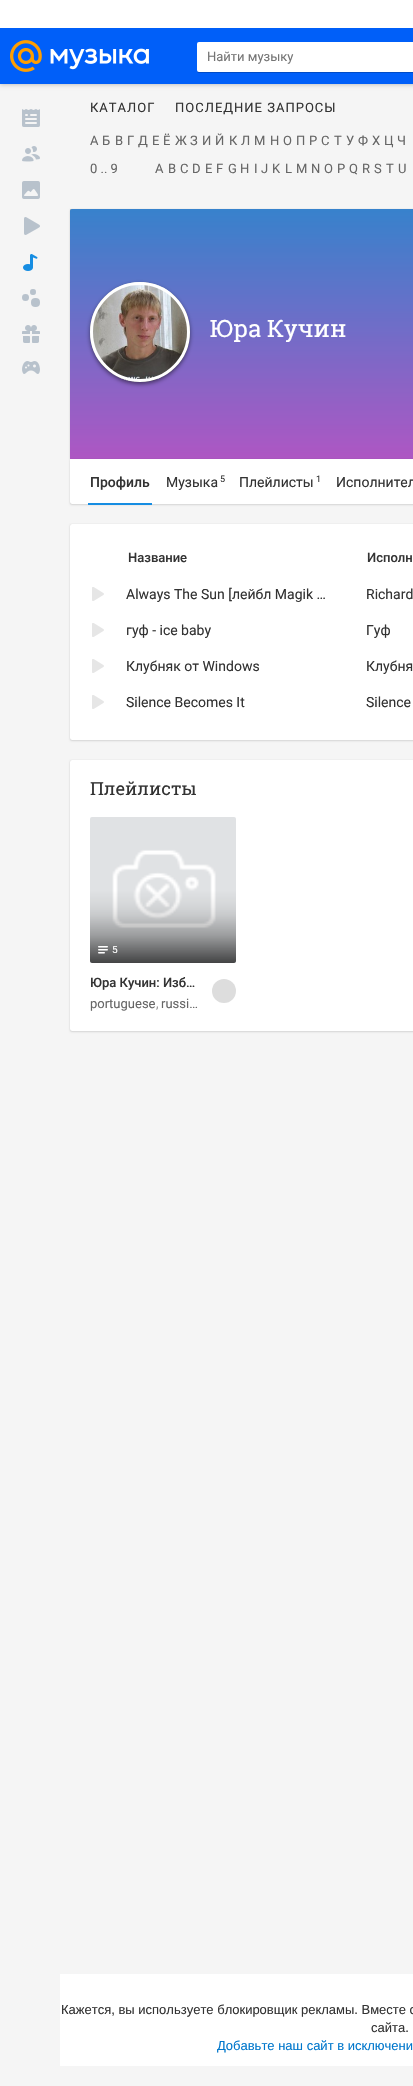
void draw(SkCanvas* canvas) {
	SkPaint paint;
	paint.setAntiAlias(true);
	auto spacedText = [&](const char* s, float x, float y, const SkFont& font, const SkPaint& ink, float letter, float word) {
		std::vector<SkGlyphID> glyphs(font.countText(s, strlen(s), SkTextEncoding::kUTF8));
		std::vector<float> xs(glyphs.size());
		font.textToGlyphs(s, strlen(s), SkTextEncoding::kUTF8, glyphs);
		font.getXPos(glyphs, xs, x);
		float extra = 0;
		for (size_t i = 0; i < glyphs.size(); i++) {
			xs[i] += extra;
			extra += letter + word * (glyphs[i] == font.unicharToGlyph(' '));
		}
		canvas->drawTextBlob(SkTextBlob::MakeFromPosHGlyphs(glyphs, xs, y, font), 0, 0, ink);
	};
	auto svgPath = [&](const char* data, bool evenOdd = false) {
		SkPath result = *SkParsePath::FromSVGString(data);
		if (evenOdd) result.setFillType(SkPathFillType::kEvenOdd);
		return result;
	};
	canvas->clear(0xfff5f5f5);
	paint.setColor(0x33000000);
	paint.setMaskFilter(SkMaskFilter::MakeBlur(kNormal_SkBlurStyle, 2));
	canvas->drawRect(SkRect::MakeXYWH(0, 29, 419, 56), paint);
	paint.setMaskFilter(nullptr);
	paint.setColor(0xffffffff);
	canvas->drawRect(SkRect::MakeXYWH(0, 0, 413, 28), paint);
	paint.setColor(0xff005ff9);
	canvas->drawRect(SkRect::MakeXYWH(0, 28, 413, 56), paint);
	canvas->drawImageRect(SkImages::DeferredFromEncodedData(SkData::MakeFromFileName("img1.png")), SkRect::MakeXYWH(10, 40, 139, 32), SkSamplingOptions());
	paint.setColor(0xff004cc7);
	canvas->drawPath(svgPath("M197 70C197 71 197 73 199 73H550C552 73 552 71 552 70C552 71 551 72 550 72H199C198 72 197 71 197 70Z"), paint);
	paint.setColor(0xffffffff);
	canvas->drawRoundRect(SkRect::MakeXYWH(197, 42, 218, 30), 2, 2, paint);
	SkFont f1(fontMgr->matchFamilyStyle("Roboto", SkFontStyle::Normal()), 13);
	f1.setSubpixel(true);
	paint.setColor(0xff757575);
	canvas->drawString("Найти музыку", 207, 61, f1, paint);
	canvas->drawImageRect(SkImages::DeferredFromEncodedData(SkData::MakeFromFileName("img2.png")), SkRect::MakeXYWH(22, 109, 18, 18), SkSamplingOptions());
	canvas->drawImageRect(SkImages::DeferredFromEncodedData(SkData::MakeFromFileName("img3.png")), SkRect::MakeXYWH(22, 146, 18, 16), SkSamplingOptions());
	canvas->drawImageRect(SkImages::DeferredFromEncodedData(SkData::MakeFromFileName("img4.png")), SkRect::MakeXYWH(22, 181, 18, 18), SkSamplingOptions());
	canvas->drawImageRect(SkImages::DeferredFromEncodedData(SkData::MakeFromFileName("img5.png")), SkRect::MakeXYWH(24, 217, 16, 18), SkSamplingOptions());
	canvas->drawImageRect(SkImages::DeferredFromEncodedData(SkData::MakeFromFileName("img6.png")), SkRect::MakeXYWH(23, 254, 15, 17), SkSamplingOptions());
	canvas->drawImageRect(SkImages::DeferredFromEncodedData(SkData::MakeFromFileName("img7.png")), SkRect::MakeXYWH(22, 289, 18, 18), SkSamplingOptions());
	canvas->drawImageRect(SkImages::DeferredFromEncodedData(SkData::MakeFromFileName("img8.png")), SkRect::MakeXYWH(22, 325, 18, 18), SkSamplingOptions());
	canvas->drawImageRect(SkImages::DeferredFromEncodedData(SkData::MakeFromFileName("img9.png")), SkRect::MakeXYWH(22, 361, 18, 13), SkSamplingOptions());
	paint.setColor(0xff333333);
	spacedText("КАТАЛОГ", 90, 112, f1, paint, 1, 0);
	spacedText("ПОСЛЕДНИЕ ЗАПРОСЫ", 175, 112, f1, paint, 1, 0);
	paint.setColor(0xff666666);
	canvas->drawString("А", 90, 145, f1, paint);
	canvas->drawString("Б", 102, 145, f1, paint);
	canvas->drawString("В", 115, 145, f1, paint);
	canvas->drawString("Г", 127, 145, f1, paint);
	canvas->drawString("Д", 138, 145, f1, paint);
	canvas->drawString("Е", 152, 145, f1, paint);
	canvas->drawString("Ё", 163, 145, f1, paint);
	canvas->drawString("Ж", 175, 145, f1, paint);
	canvas->drawString("З", 190, 145, f1, paint);
	canvas->drawString("И", 202, 145, f1, paint);
	canvas->drawString("Й", 215, 145, f1, paint);
	canvas->drawString("К", 229, 145, f1, paint);
	canvas->drawString("Л", 241, 145, f1, paint);
	canvas->drawString("М", 254, 145, f1, paint);
	canvas->drawString("Н", 270, 145, f1, paint);
	canvas->drawString("О", 283, 145, f1, paint);
	canvas->drawString("П", 296, 145, f1, paint);
	canvas->drawString("Р", 309, 145, f1, paint);
	canvas->drawString("С", 321, 145, f1, paint);
	canvas->drawString("Т", 334, 145, f1, paint);
	canvas->drawString("У", 346, 145, f1, paint);
	canvas->drawString("Ф", 358, 145, f1, paint);
	canvas->drawString("Х", 372, 145, f1, paint);
	canvas->drawString("Ц", 384, 145, f1, paint);
	canvas->drawString("Ч", 397, 145, f1, paint);
	canvas->drawString("0 .. 9", 90, 173, f1, paint);
	canvas->drawString("A", 155, 173, f1, paint);
	canvas->drawString("B", 168, 173, f1, paint);
	canvas->drawString("C", 180, 173, f1, paint);
	canvas->drawString("D", 192, 173, f1, paint);
	canvas->drawString("E", 205, 173, f1, paint);
	canvas->drawString("F", 216, 173, f1, paint);
	canvas->drawString("G", 228, 173, f1, paint);
	canvas->drawString("H", 240, 173, f1, paint);
	canvas->drawString("I", 254, 173, f1, paint);
	canvas->drawString("J", 261, 173, f1, paint);
	canvas->drawString("K", 272, 173, f1, paint);
	canvas->drawString("L", 285, 173, f1, paint);
	canvas->drawString("M", 296, 173, f1, paint);
	canvas->drawString("N", 311, 173, f1, paint);
	canvas->drawString("O", 324, 173, f1, paint);
	canvas->drawString("P", 337, 173, f1, paint);
	canvas->drawString("Q", 349, 173, f1, paint);
	canvas->drawString("R", 362, 173, f1, paint);
	canvas->drawString("S", 374, 173, f1, paint);
	canvas->drawString("T", 386, 173, f1, paint);
	canvas->drawString("U", 398, 173, f1, paint);
	paint.setColor(0x1f000000);
	paint.setMaskFilter(SkMaskFilter::MakeBlur(kNormal_SkBlurStyle, 1));
	canvas->drawRoundRect(SkRect::MakeXYWH(70, 210, 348, 250), 2, 2, paint);
	paint.setMaskFilter(nullptr);
	paint.setColor(0x26000000);
	paint.setMaskFilter(SkMaskFilter::MakeBlur(kNormal_SkBlurStyle, 0.5));
	canvas->drawRoundRect(SkRect::MakeXYWH(70, 209, 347, 250), 2, 2, paint);
	paint.setMaskFilter(nullptr);
	{
		const SkColor colors[] = {0xff45a2ff, 0xffda6cf4};
		const float stops[] = {0, 1};
		const SkPoint ends[] = {{400, 209}, {400, 459}};
		paint.setShader(SkGradientShader::MakeLinear(ends, colors, stops, 2, SkTileMode::kClamp));
		paint.setAlpha(255);
	}
	canvas->drawPath(svgPath("M72 209H413C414 209 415 210 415 211V459H70V211C70 210 71 209 72 209Z"), paint);
	paint.setShader(nullptr);
	paint.setColor(0x33000000);
	canvas->drawRect(SkRect::MakeXYWH(70, 209, 343, 250), paint);
	paint.setColor(0x80000000);
	paint.setMaskFilter(SkMaskFilter::MakeBlur(kNormal_SkBlurStyle, 2));
	canvas->drawRoundRect(SkRect::MakeXYWH(90, 284, 100, 100), 50, 50, paint);
	paint.setMaskFilter(nullptr);
	canvas->drawImageRect(SkImages::DeferredFromEncodedData(SkData::MakeFromFileName("img10.png")), SkRect::MakeXYWH(90, 282, 100, 100), SkSamplingOptions());
	paint.setStroke(true);
	paint.setStrokeWidth(3);
	paint.setColor(0xffffffff);
	canvas->drawCircle(140, 332, 48.5, paint);
	SkFont f2(fontMgr->matchFamilyStyle("Roboto Slab", SkFontStyle::Normal()), 24);
	f2.setSubpixel(true);
	paint.setStroke(false);
	canvas->drawString("Юра Кучин", 210, 337, f2, paint);
	paint.setColor(0x1f000000);
	paint.setMaskFilter(SkMaskFilter::MakeBlur(kNormal_SkBlurStyle, 1));
	canvas->drawRoundRect(SkRect::MakeXYWH(70, 460, 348, 45), 2, 2, paint);
	paint.setMaskFilter(nullptr);
	paint.setColor(0x26000000);
	paint.setMaskFilter(SkMaskFilter::MakeBlur(kNormal_SkBlurStyle, 0.5));
	canvas->drawRoundRect(SkRect::MakeXYWH(70, 459, 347, 45), 2, 2, paint);
	paint.setMaskFilter(nullptr);
	paint.setColor(0xffffffff);
	canvas->drawPath(svgPath("M70 459H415V502C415 503 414 504 413 504H72C71 504 70 503 70 502Z"), paint);
	paint.setColor(0xff168de2);
	canvas->drawRect(SkRect::MakeXYWH(88, 503, 64, 2), paint);
	SkFont f3(fontMgr->matchFamilyStyle("Roboto", SkFontStyle(500, SkFontStyle::kNormal_Width, SkFontStyle::kUpright_Slant)), 14);
	f3.setSubpixel(true);
	paint.setColor(0xff333333);
	canvas->drawString("Профиль", 90, 487, f3, paint);
	SkFont f4(fontMgr->matchFamilyStyle("Roboto", SkFontStyle::Normal()), 14);
	f4.setSubpixel(true);
	canvas->drawString("Музыка", 166, 487, f4, paint);
	SkFont f5(fontMgr->matchFamilyStyle("Roboto", SkFontStyle::Normal()), 9);
	f5.setSubpixel(true);
	canvas->drawString("5", 220, 482, f5, paint);
	canvas->drawString("Плейлисты", 239, 487, f4, paint);
	canvas->drawString("1", 316, 482, f5, paint);
	canvas->drawString("Исполнител", 336, 487, f4, paint);
	paint.setColor(0x1f000000);
	paint.setMaskFilter(SkMaskFilter::MakeBlur(kNormal_SkBlurStyle, 1));
	canvas->drawRoundRect(SkRect::MakeXYWH(70, 525, 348, 216), 2, 2, paint);
	paint.setMaskFilter(nullptr);
	paint.setColor(0x26000000);
	paint.setMaskFilter(SkMaskFilter::MakeBlur(kNormal_SkBlurStyle, 0.5));
	canvas->drawRoundRect(SkRect::MakeXYWH(70, 524, 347, 216), 2, 2, paint);
	paint.setMaskFilter(nullptr);
	paint.setColor(0xffffffff);
	canvas->drawRoundRect(SkRect::MakeXYWH(70, 524, 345, 216), 2, 2, paint);
	SkFont f6(fontMgr->matchFamilyStyle("Roboto", SkFontStyle(500, SkFontStyle::kNormal_Width, SkFontStyle::kUpright_Slant)), 13);
	f6.setSubpixel(true);
	paint.setColor(0xff333333);
	canvas->drawString("Название", 128, 562, f6, paint);
	canvas->drawString("Исполн", 367, 562, f6, paint);
	canvas->drawImageRect(SkImages::DeferredFromEncodedData(SkData::MakeFromFileName("img11.png")), SkRect::MakeXYWH(92, 587, 12, 14), SkSamplingOptions());
	canvas->drawString("Always The Sun [лейбл Magik …", 126, 599, f4, paint);
	canvas->drawString("Richard", 366, 599, f4, paint);
	canvas->drawImageRect(SkImages::DeferredFromEncodedData(SkData::MakeFromFileName("img11.png")), SkRect::MakeXYWH(92, 623, 12, 14), SkSamplingOptions());
	canvas->drawString("гуф - ice baby", 126, 635, f4, paint);
	canvas->drawString("Гуф", 366, 635, f4, paint);
	canvas->drawImageRect(SkImages::DeferredFromEncodedData(SkData::MakeFromFileName("img11.png")), SkRect::MakeXYWH(92, 659, 12, 14), SkSamplingOptions());
	canvas->drawString("Клубняк от Windows", 126, 671, f4, paint);
	canvas->drawString("Клубня", 366, 671, f4, paint);
	canvas->drawImageRect(SkImages::DeferredFromEncodedData(SkData::MakeFromFileName("img11.png")), SkRect::MakeXYWH(92, 695, 12, 14), SkSamplingOptions());
	canvas->drawString("Silence Becomes It", 126, 707, f4, paint);
	canvas->drawString("Silence", 366, 707, f4, paint);
	paint.setColor(0x1f000000);
	paint.setMaskFilter(SkMaskFilter::MakeBlur(kNormal_SkBlurStyle, 1));
	canvas->drawRoundRect(SkRect::MakeXYWH(70, 761, 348, 271), 2, 2, paint);
	paint.setMaskFilter(nullptr);
	paint.setColor(0x26000000);
	paint.setMaskFilter(SkMaskFilter::MakeBlur(kNormal_SkBlurStyle, 0.5));
	canvas->drawRoundRect(SkRect::MakeXYWH(70, 760, 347, 271), 2, 2, paint);
	paint.setMaskFilter(nullptr);
	paint.setColor(0xffffffff);
	canvas->drawRoundRect(SkRect::MakeXYWH(70, 760, 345, 271), 2, 2, paint);
	SkFont f7(fontMgr->matchFamilyStyle("Roboto Slab", SkFontStyle::Normal()), 18);
	f7.setSubpixel(true);
	paint.setColor(0xff333333);
	canvas->drawString("Плейлисты", 90, 795, f7, paint);
	canvas->drawImageRect(SkImages::DeferredFromEncodedData(SkData::MakeFromFileName("img12.png")), SkRect::MakeXYWH(90, 817, 146, 146), SkSamplingOptions());
	{
		const SkColor colors[] = {0x00000000, 0x0d000000, 0x1a000000, 0x4d000000, 0xb3000000};
		const float stops[] = {0, 0.22, 0.34, 0.62, 1};
		const SkPoint ends[] = {{163, 890}, {163, 963}};
		paint.setShader(SkGradientShader::MakeLinear(ends, colors, stops, 5, SkTileMode::kClamp));
		paint.setAlpha(255);
	}
	canvas->drawPath(svgPath("M90 890H236V961C236 962 235 963 234 963H92C91 963 90 962 90 961Z"), paint);
	canvas->drawImageRect(SkImages::DeferredFromEncodedData(SkData::MakeFromFileName("img13.png")), SkRect::MakeXYWH(98, 946, 10, 8), SkSamplingOptions());
	SkFont f8(fontMgr->matchFamilyStyle("Roboto", SkFontStyle::Normal()), 10);
	f8.setSubpixel(true);
	paint.setShader(nullptr);
	paint.setColor(0xffffffff);
	canvas->drawString("5", 112, 953, f8, paint);
	paint.setColor(0xff333333);
	canvas->drawString("Юра Кучин: Изб…", 90, 987, f6, paint);
	paint.setColor(0xffdddddd);
	canvas->drawCircle(224, 991, 12, paint);
	paint.setColor(0xff666666);
	canvas->drawString("portuguese", 90, 1008, f1, paint);
	paint.setColor(0xff999999);
	canvas->drawString(",", 156, 1008, f1, paint);
	paint.setColor(0xff666666);
	canvas->drawString("russi…", 161, 1008, f1, paint);
	paint.setColor(0xffffffff);
	canvas->drawRect(SkRect::MakeXYWH(60, 1974, 353, 92), paint);
	SkFont f9(fontMgr->matchFamilyStyle("Liberation Sans", SkFontStyle::Normal()), 13);
	f9.setSubpixel(true);
	paint.setColor(0xff333333);
	canvas->drawString("Кажется, вы используете блокировщик рекламы. Вместе с", 61, 2014, f9, paint);
	canvas->drawString("сайта.", 371, 2032, f9, paint);
	paint.setColor(0xff0077cc);
	canvas->drawString("Добавьте наш сайт в исключени", 217, 2050, f9, paint);
}
